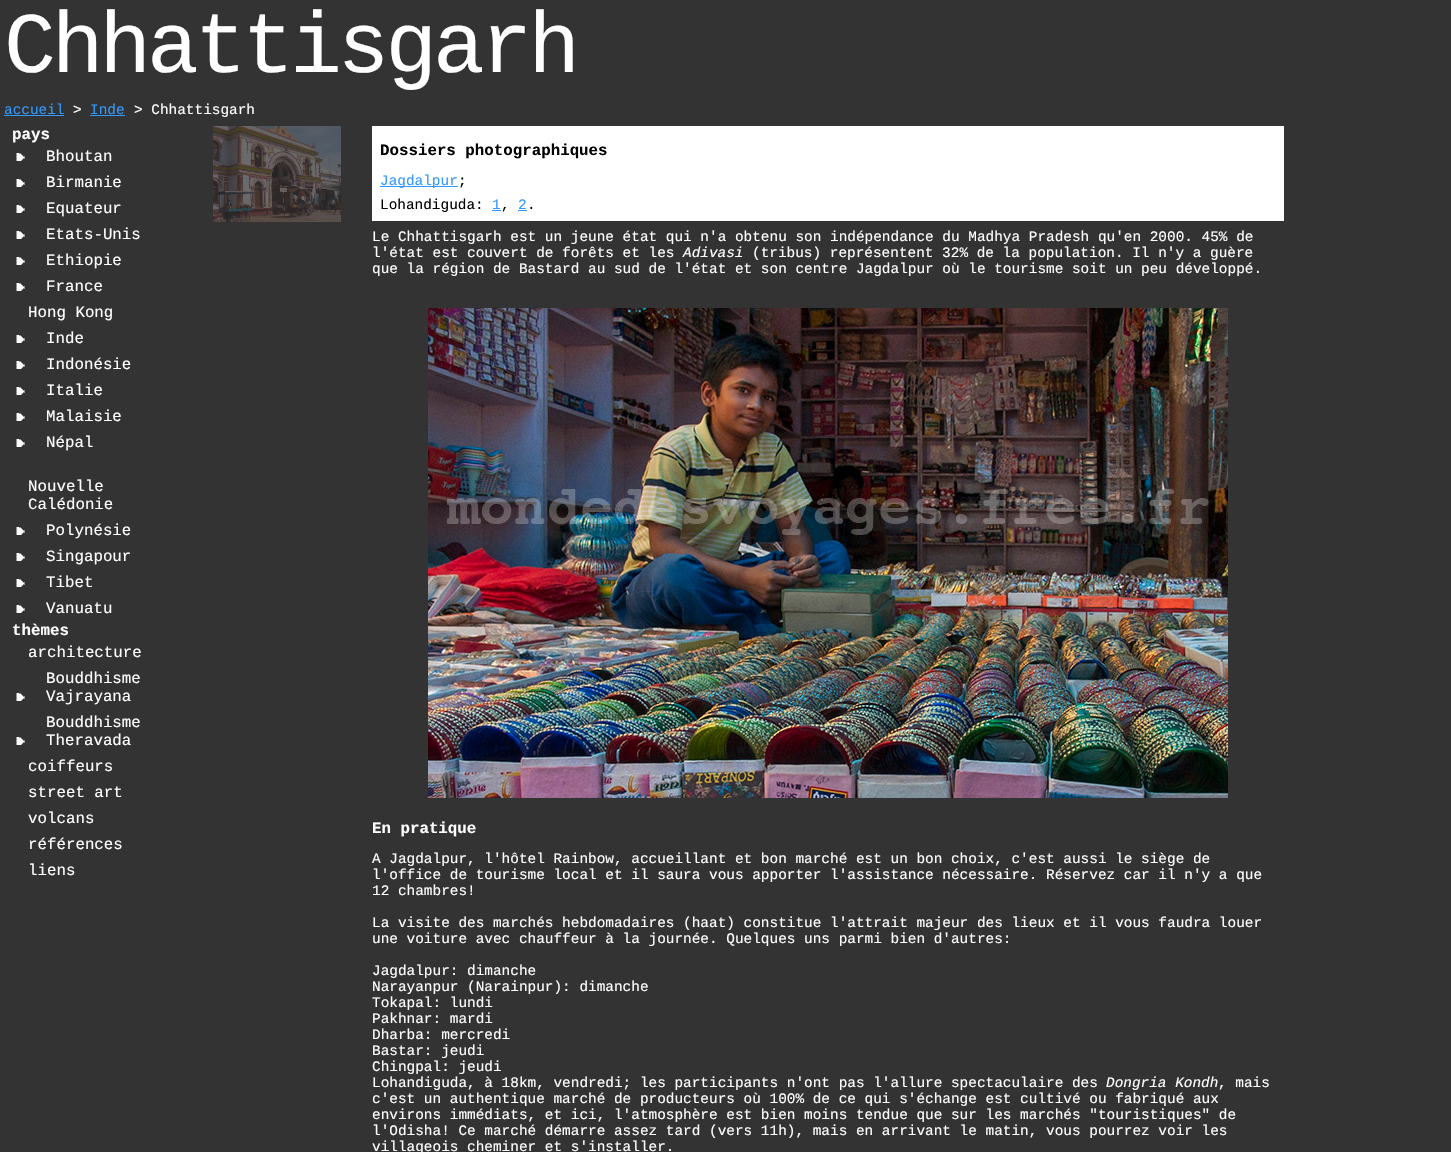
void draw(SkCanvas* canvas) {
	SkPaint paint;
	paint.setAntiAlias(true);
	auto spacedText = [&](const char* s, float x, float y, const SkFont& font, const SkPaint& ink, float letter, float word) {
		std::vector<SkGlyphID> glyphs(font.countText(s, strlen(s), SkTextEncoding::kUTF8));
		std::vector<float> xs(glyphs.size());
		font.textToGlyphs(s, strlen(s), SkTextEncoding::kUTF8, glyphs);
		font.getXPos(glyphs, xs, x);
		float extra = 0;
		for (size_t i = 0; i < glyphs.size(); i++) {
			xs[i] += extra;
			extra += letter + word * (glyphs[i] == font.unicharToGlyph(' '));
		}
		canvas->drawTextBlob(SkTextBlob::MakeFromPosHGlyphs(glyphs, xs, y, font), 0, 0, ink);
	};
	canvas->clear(0xff333333);
	SkFont f1(fontMgr->matchFamilyStyle("Liberation Mono", SkFontStyle::Normal()), 86.5);
	f1.setSubpixel(true);
	paint.setColor(0xffffffff);
	spacedText("Chhattisgarh", 4, 72, f1, paint, -4.25, 0);
	SkFont f2(fontMgr->matchFamilyStyle("Liberation Mono", SkFontStyle::Normal()), 14.4);
	f2.setSubpixel(true);
	paint.setColor(0xff3399ff);
	canvas->drawString("accueil", 4, 114, f2, paint);
	canvas->drawRect(SkRect::MakeXYWH(4, 115, 60, 1), paint);
	paint.setColor(0xffffffff);
	canvas->drawString(">", 73, 114, f2, paint);
	paint.setColor(0xff3399ff);
	canvas->drawString("Inde", 90, 114, f2, paint);
	canvas->drawRect(SkRect::MakeXYWH(90, 115, 35, 1), paint);
	paint.setColor(0xffffffff);
	canvas->drawString("> Chhattisgarh", 134, 114, f2, paint);
	SkFont f3(fontMgr->matchFamilyStyle("Liberation Mono", SkFontStyle::Bold()), 15.8);
	f3.setSubpixel(true);
	canvas->drawString("pays", 12, 139, f3, paint);
	canvas->drawImageRect(SkImages::DeferredFromEncodedData(SkData::MakeFromFileName("img1.png")), SkRect::MakeXYWH(16, 153, 9, 8), SkSamplingOptions());
	SkFont f4(fontMgr->matchFamilyStyle("Liberation Mono", SkFontStyle::Normal()), 15.8);
	f4.setSubpixel(true);
	canvas->drawString("Bhoutan", 46, 161, f4, paint);
	canvas->drawImageRect(SkImages::DeferredFromEncodedData(SkData::MakeFromFileName("img1.png")), SkRect::MakeXYWH(16, 179, 9, 8), SkSamplingOptions());
	canvas->drawString("Birmanie", 46, 187, f4, paint);
	canvas->drawImageRect(SkImages::DeferredFromEncodedData(SkData::MakeFromFileName("img1.png")), SkRect::MakeXYWH(16, 205, 9, 8), SkSamplingOptions());
	canvas->drawString("Equateur", 46, 213, f4, paint);
	canvas->drawImageRect(SkImages::DeferredFromEncodedData(SkData::MakeFromFileName("img1.png")), SkRect::MakeXYWH(16, 231, 9, 8), SkSamplingOptions());
	canvas->drawString("Etats-Unis", 46, 239, f4, paint);
	canvas->drawImageRect(SkImages::DeferredFromEncodedData(SkData::MakeFromFileName("img1.png")), SkRect::MakeXYWH(16, 257, 9, 8), SkSamplingOptions());
	canvas->drawString("Ethiopie", 46, 265, f4, paint);
	canvas->drawImageRect(SkImages::DeferredFromEncodedData(SkData::MakeFromFileName("img1.png")), SkRect::MakeXYWH(16, 283, 9, 8), SkSamplingOptions());
	canvas->drawString("France", 46, 291, f4, paint);
	canvas->drawString("Hong Kong", 28, 317, f4, paint);
	canvas->drawImageRect(SkImages::DeferredFromEncodedData(SkData::MakeFromFileName("img1.png")), SkRect::MakeXYWH(16, 335, 9, 8), SkSamplingOptions());
	canvas->drawString("Inde", 46, 343, f4, paint);
	canvas->drawImageRect(SkImages::DeferredFromEncodedData(SkData::MakeFromFileName("img1.png")), SkRect::MakeXYWH(16, 361, 9, 8), SkSamplingOptions());
	canvas->drawString("Indonésie", 46, 369, f4, paint);
	canvas->drawImageRect(SkImages::DeferredFromEncodedData(SkData::MakeFromFileName("img1.png")), SkRect::MakeXYWH(16, 387, 9, 8), SkSamplingOptions());
	canvas->drawString("Italie", 46, 395, f4, paint);
	canvas->drawImageRect(SkImages::DeferredFromEncodedData(SkData::MakeFromFileName("img1.png")), SkRect::MakeXYWH(16, 413, 9, 8), SkSamplingOptions());
	canvas->drawString("Malaisie", 46, 421, f4, paint);
	canvas->drawImageRect(SkImages::DeferredFromEncodedData(SkData::MakeFromFileName("img1.png")), SkRect::MakeXYWH(16, 439, 9, 8), SkSamplingOptions());
	canvas->drawString("Népal", 46, 447, f4, paint);
	canvas->drawString("Nouvelle", 28, 491, f4, paint);
	canvas->drawString("Calédonie", 28, 509, f4, paint);
	canvas->drawImageRect(SkImages::DeferredFromEncodedData(SkData::MakeFromFileName("img1.png")), SkRect::MakeXYWH(16, 527, 9, 8), SkSamplingOptions());
	canvas->drawString("Polynésie", 46, 535, f4, paint);
	canvas->drawImageRect(SkImages::DeferredFromEncodedData(SkData::MakeFromFileName("img1.png")), SkRect::MakeXYWH(16, 553, 9, 8), SkSamplingOptions());
	canvas->drawString("Singapour", 46, 561, f4, paint);
	canvas->drawImageRect(SkImages::DeferredFromEncodedData(SkData::MakeFromFileName("img1.png")), SkRect::MakeXYWH(16, 579, 9, 8), SkSamplingOptions());
	canvas->drawString("Tibet", 46, 587, f4, paint);
	canvas->drawImageRect(SkImages::DeferredFromEncodedData(SkData::MakeFromFileName("img1.png")), SkRect::MakeXYWH(16, 605, 9, 8), SkSamplingOptions());
	canvas->drawString("Vanuatu", 46, 613, f4, paint);
	canvas->drawString("thèmes", 12, 635, f3, paint);
	canvas->drawString("architecture", 28, 657, f4, paint);
	canvas->drawImageRect(SkImages::DeferredFromEncodedData(SkData::MakeFromFileName("img1.png")), SkRect::MakeXYWH(16, 693, 9, 8), SkSamplingOptions());
	canvas->drawString("Bouddhisme", 46, 683, f4, paint);
	canvas->drawString("Vajrayana", 46, 701, f4, paint);
	canvas->drawImageRect(SkImages::DeferredFromEncodedData(SkData::MakeFromFileName("img1.png")), SkRect::MakeXYWH(16, 737, 9, 8), SkSamplingOptions());
	canvas->drawString("Bouddhisme", 46, 727, f4, paint);
	canvas->drawString("Theravada", 46, 745, f4, paint);
	canvas->drawString("coiffeurs", 28, 771, f4, paint);
	canvas->drawString("street art", 28, 797, f4, paint);
	canvas->drawString("volcans", 28, 823, f4, paint);
	canvas->drawString("références", 28, 849, f4, paint);
	canvas->drawString("liens", 28, 875, f4, paint);
	canvas->drawImageRect(SkImages::DeferredFromEncodedData(SkData::MakeFromFileName("img2.png")), SkRect::MakeXYWH(213, 126, 128, 96), SkSamplingOptions());
	canvas->drawRect(SkRect::MakeXYWH(372, 126, 912, 95), paint);
	paint.setColor(0xff000000);
	canvas->drawString("Dossiers photographiques", 380, 155, f3, paint);
	paint.setColor(0xff3399ff);
	canvas->drawRect(SkRect::MakeXYWH(380, 186, 78, 1), paint);
	canvas->drawString("Jagdalpur", 380, 185, f2, paint);
	paint.setColor(0xff000000);
	canvas->drawString(";", 458, 185, f2, paint);
	canvas->drawString("Lohandiguda:", 380, 209, f2, paint);
	paint.setColor(0xff3399ff);
	canvas->drawString("1", 492, 209, f2, paint);
	canvas->drawRect(SkRect::MakeXYWH(492, 210, 9, 1), paint);
	paint.setColor(0xff000000);
	canvas->drawString(",", 501, 209, f2, paint);
	paint.setColor(0xff3399ff);
	canvas->drawString("2", 518, 209, f2, paint);
	canvas->drawRect(SkRect::MakeXYWH(518, 210, 9, 1), paint);
	paint.setColor(0xff000000);
	canvas->drawString(".", 527, 209, f2, paint);
	paint.setColor(0xffffffff);
	canvas->drawString("Le Chhattisgarh est un jeune état qui n'a obtenu son indépendance du Madhya Pradesh qu'en 2000. 45% de", 372, 241, f2, paint);
	canvas->drawString("l'état est couvert de forêts et les", 372, 257, f2, paint);
	SkFont f5(fontMgr->matchFamilyStyle("Liberation Mono", SkFontStyle::Italic()), 14.4);
	f5.setSubpixel(true);
	canvas->drawString("Adivasi", 683, 257, f5, paint);
	canvas->drawString("(tribus) représentent 32% de la population. Il n'y a guère", 752, 257, f2, paint);
	canvas->drawString("que la région de Bastard au sud de l'état et son centre Jagdalpur où le tourisme soit un peu développé.", 372, 273, f2, paint);
	canvas->drawImageRect(SkImages::DeferredFromEncodedData(SkData::MakeFromFileName("img3.png")), SkRect::MakeXYWH(428, 308, 800, 490), SkSamplingOptions());
	canvas->drawString("En pratique", 372, 833, f3, paint);
	canvas->drawString("A Jagdalpur, l'hôtel Rainbow, accueillant et bon marché est un bon choix, c'est aussi le siège de", 372, 863, f2, paint);
	canvas->drawString("l'office de tourisme local et il saura vous apporter l'assistance nécessaire. Réservez car il n'y a que", 372, 879, f2, paint);
	canvas->drawString("12 chambres!", 372, 895, f2, paint);
	canvas->drawString("La visite des marchés hebdomadaires (haat) constitue l'attrait majeur des lieux et il vous faudra louer", 372, 927, f2, paint);
	canvas->drawString("une voiture avec chauffeur à la journée. Quelques uns parmi bien d'autres:", 372, 943, f2, paint);
	canvas->drawString("Jagdalpur: dimanche", 372, 975, f2, paint);
	canvas->drawString("Narayanpur (Narainpur): dimanche", 372, 991, f2, paint);
	canvas->drawString("Tokapal: lundi", 372, 1007, f2, paint);
	canvas->drawString("Pakhnar: mardi", 372, 1023, f2, paint);
	canvas->drawString("Dharba: mercredi", 372, 1039, f2, paint);
	canvas->drawString("Bastar: jeudi", 372, 1055, f2, paint);
	canvas->drawString("Chingpal: jeudi", 372, 1071, f2, paint);
	canvas->drawString("Lohandiguda, à 18km, vendredi; les participants n'ont pas l'allure spectaculaire des", 372, 1087, f2, paint);
	canvas->drawString("Dongria Kondh", 1106, 1087, f5, paint);
	canvas->drawString(", mais", 1218, 1087, f2, paint);
	canvas->drawString("c'est un authentique marché de producteurs où 100% de ce qui s'échange est cultivé ou fabriqué aux", 372, 1103, f2, paint);
	canvas->drawString("environs immédiats, et ici, l'atmosphère est bien moins tendue que sur les marchés \"touristiques\" de", 372, 1119, f2, paint);
	canvas->drawString("l'Odisha! Ce marché démarre assez tard (vers 11h), mais en arrivant le matin, vous pourrez voir les", 372, 1135, f2, paint);
	canvas->drawString("villageois cheminer et s'installer.", 372, 1151, f2, paint);
}
